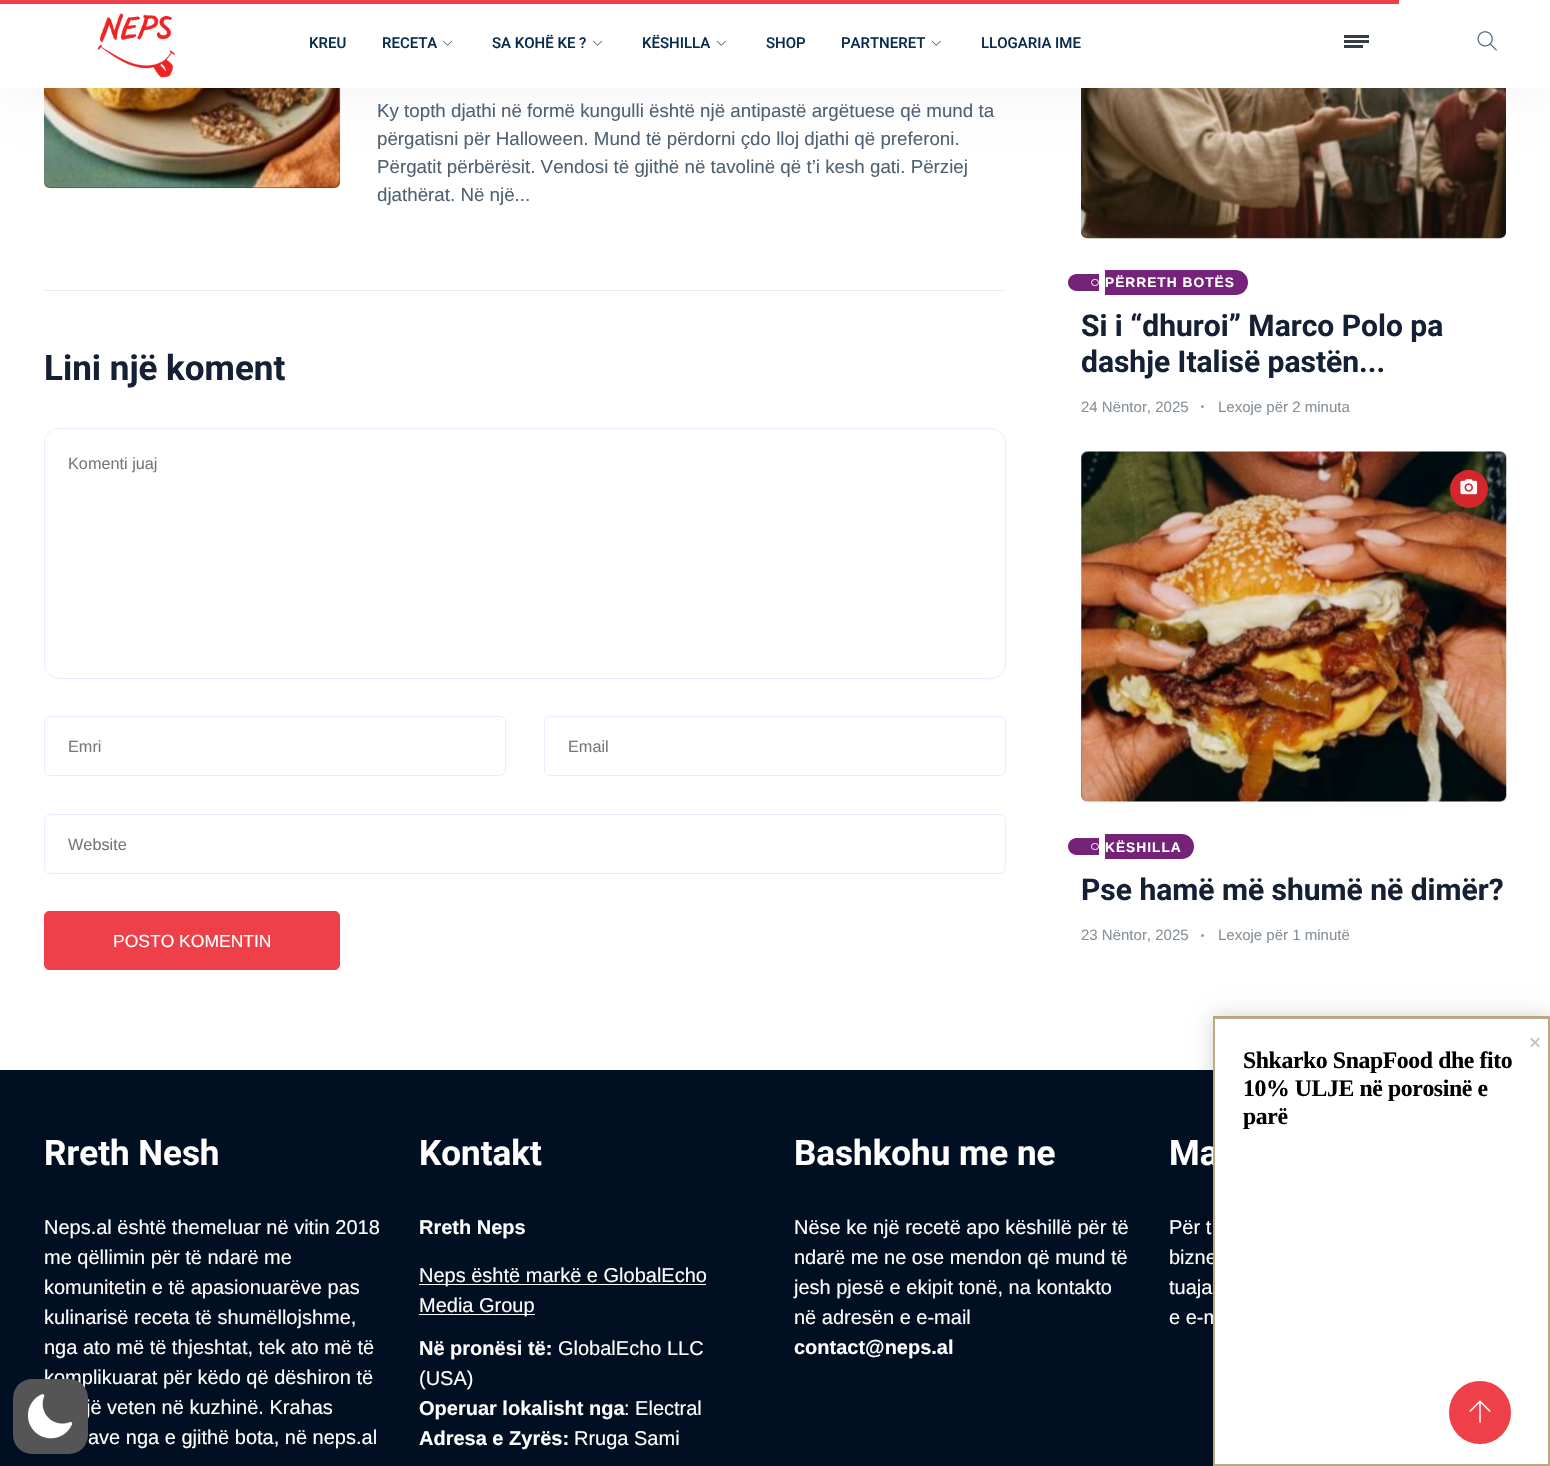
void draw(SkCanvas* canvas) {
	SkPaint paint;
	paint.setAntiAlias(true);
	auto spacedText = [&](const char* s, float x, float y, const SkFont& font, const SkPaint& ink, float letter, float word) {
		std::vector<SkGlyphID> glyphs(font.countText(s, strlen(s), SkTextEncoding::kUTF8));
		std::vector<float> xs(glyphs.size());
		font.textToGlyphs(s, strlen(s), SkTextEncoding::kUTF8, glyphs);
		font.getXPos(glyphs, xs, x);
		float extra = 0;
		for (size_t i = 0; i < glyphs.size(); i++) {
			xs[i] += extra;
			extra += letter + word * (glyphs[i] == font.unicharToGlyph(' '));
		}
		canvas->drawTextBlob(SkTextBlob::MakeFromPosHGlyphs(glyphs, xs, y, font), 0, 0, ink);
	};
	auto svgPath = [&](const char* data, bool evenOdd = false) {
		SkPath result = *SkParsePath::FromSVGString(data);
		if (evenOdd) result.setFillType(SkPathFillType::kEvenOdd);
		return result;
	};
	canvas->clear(0xffffffff);
	{
		const SkColor colors[] = {0xffffffff, 0xff333333};
		const float stops[] = {0.5, 1};
		const SkPoint ends[] = {{192, -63}, {192, 188}};
		paint.setShader(SkGradientShader::MakeLinear(ends, colors, stops, 2, SkTileMode::kClamp));
		paint.setAlpha(255);
	}
	canvas->drawRoundRect(SkRect::MakeXYWH(44, -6, 296, 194), 6, 6, paint);
	canvas->drawImageRect(SkImages::DeferredFromEncodedData(SkData::MakeFromFileName("img5.png")), SkRect::MakeXYWH(44, 88, 297, 101), SkSamplingOptions());
	{
		const SkColor colors[] = {0xffffffff, 0xff333333};
		const float stops[] = {0.5, 1};
		const SkPoint ends[] = {{1294, -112}, {1294, 238}};
		paint.setShader(SkGradientShader::MakeLinear(ends, colors, stops, 2, SkTileMode::kClamp));
		paint.setAlpha(255);
	}
	canvas->drawRoundRect(SkRect::MakeXYWH(1081, -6, 425, 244), 6, 6, paint);
	canvas->drawImageRect(SkImages::DeferredFromEncodedData(SkData::MakeFromFileName("img6.png")), SkRect::MakeXYWH(1081, 88, 425, 151), SkSamplingOptions());
	paint.setShader(nullptr);
	paint.setColor(0x0d000000);
	paint.setMaskFilter(SkMaskFilter::MakeBlur(kNormal_SkBlurStyle, 25));
	canvas->drawRect(SkRect::MakeXYWH(0, 0, 1550, 88), paint);
	paint.setMaskFilter(nullptr);
	paint.setColor(0xffffffff);
	canvas->drawRect(SkRect::MakeXYWH(0, 0, 1550, 88), paint);
	paint.setColor(0xffef3f48);
	canvas->drawRect(SkRect::MakeXYWH(0, 0, 1399, 4), paint);
	canvas->drawImageRect(SkImages::DeferredFromEncodedData(SkData::MakeFromFileName("img1.png")), SkRect::MakeXYWH(98, 13, 77, 65), SkSamplingOptions());
	SkFont f1(fontMgr->matchFamilyStyle("Roboto", SkFontStyle(500, SkFontStyle::kNormal_Width, SkFontStyle::kUpright_Slant)), 15);
	f1.setSubpixel(true);
	paint.setColor(0xff092b4d);
	canvas->drawString("KREU", 309, 48, f1, paint);
	canvas->drawString("RECETA", 382, 48, f1, paint);
	canvas->drawImageRect(SkImages::DeferredFromEncodedData(SkData::MakeFromFileName("img2.png")), SkRect::MakeXYWH(443, 40, 9, 6), SkSamplingOptions());
	canvas->drawString("SA KOHË KE ?", 492, 48, f1, paint);
	canvas->drawImageRect(SkImages::DeferredFromEncodedData(SkData::MakeFromFileName("img2.png")), SkRect::MakeXYWH(593, 40, 9, 6), SkSamplingOptions());
	canvas->drawString("KËSHILLA", 642, 48, f1, paint);
	canvas->drawImageRect(SkImages::DeferredFromEncodedData(SkData::MakeFromFileName("img3.png")), SkRect::MakeXYWH(716, 40, 10, 6), SkSamplingOptions());
	canvas->drawString("SHOP", 766, 48, f1, paint);
	canvas->drawString("PARTNERET", 841, 48, f1, paint);
	canvas->drawImageRect(SkImages::DeferredFromEncodedData(SkData::MakeFromFileName("img3.png")), SkRect::MakeXYWH(931, 40, 10, 6), SkSamplingOptions());
	canvas->drawString("LLOGARIA IME", 981, 48, f1, paint);
	paint.setColor(0xff353c49);
	canvas->drawRect(SkRect::MakeXYWH(1344, 45, 19, 3), paint);
	canvas->drawRect(SkRect::MakeXYWH(1344, 35, 25, 3), paint);
	canvas->drawRect(SkRect::MakeXYWH(1344, 40, 25, 3), paint);
	canvas->drawImageRect(SkImages::DeferredFromEncodedData(SkData::MakeFromFileName("img4.png")), SkRect::MakeXYWH(1477, 31, 20, 20), SkSamplingOptions());
	SkFont f2(fontMgr->matchFamilyStyle("Arimo", SkFontStyle::Normal()), 18.75);
	f2.setSubpixel(true);
	paint.setColor(0xff506172);
	canvas->drawString("Ky topth djathi në formë kungulli është një antipastë argëtuese që mund ta", 377, 117, f2, paint);
	canvas->drawString("përgatisni për Halloween. Mund të përdorni çdo lloj djathi që preferoni.", 377, 145, f2, paint);
	canvas->drawString("Përgatit përbërësit. Vendosi të gjithë në tavolinë që t’i kesh gati. Përziej", 377, 173, f2, paint);
	canvas->drawString("djathërat. Në një...", 377, 201, f2, paint);
	paint.setColor(0xffeeeeee);
	canvas->drawRect(SkRect::MakeXYWH(44, 290, 962, 1), paint);
	SkFont f3(fontMgr->matchFamilyStyle("Roboto", SkFontStyle::Bold()), 35);
	f3.setSubpixel(true);
	paint.setColor(0xff152035);
	canvas->drawString("Lini një koment", 44, 380, f3, paint);
	paint.setStroke(true);
	paint.setStrokeWidth(1);
	paint.setColor(0xfff0e9ff);
	canvas->drawRoundRect(SkRect::MakeXYWH(44.5, 428.5, 961, 250), 14.5, 14.5, paint);
	SkFont f4(fontMgr->matchFamilyStyle("Arimo", SkFontStyle::Normal()), 16.25);
	f4.setSubpixel(true);
	paint.setStroke(false);
	paint.setColor(0xff777777);
	canvas->drawString("Komenti juaj", 68, 469, f4, paint);
	paint.setStroke(true);
	paint.setColor(0xfff0e9ff);
	canvas->drawRoundRect(SkRect::MakeXYWH(44.5, 716.5, 461, 59), 5.5, 5.5, paint);
	paint.setStroke(false);
	paint.setColor(0xff777777);
	canvas->drawString("Emri", 68, 752, f4, paint);
	paint.setStroke(true);
	paint.setColor(0xfff0e9ff);
	canvas->drawRoundRect(SkRect::MakeXYWH(544.5, 716.5, 461, 59), 5.5, 5.5, paint);
	paint.setStroke(false);
	paint.setColor(0xff777777);
	canvas->drawString("Email", 568, 752, f4, paint);
	paint.setStroke(true);
	paint.setColor(0xfff0e9ff);
	canvas->drawRoundRect(SkRect::MakeXYWH(44.5, 814.5, 961, 59), 5.5, 5.5, paint);
	paint.setStroke(false);
	paint.setColor(0xff777777);
	canvas->drawString("Website", 68, 850, f4, paint);
	paint.setColor(0xffef3f48);
	canvas->drawRoundRect(SkRect::MakeXYWH(44.5, 911.5, 295, 58), 4.5, 4.5, paint);
	paint.setStroke(true);
	canvas->drawRoundRect(SkRect::MakeXYWH(44.5, 911.5, 295, 58), 4.5, 4.5, paint);
	SkFont f5(fontMgr->matchFamilyStyle("Arimo", SkFontStyle::Normal()), 17.5);
	f5.setSubpixel(true);
	paint.setStroke(false);
	paint.setColor(0xffffffff);
	canvas->drawString("POSTO KOMENTIN", 113, 947, f5, paint);
	paint.setColor(0xff752279);
	canvas->drawPath(svgPath("M1076.5 274H1099V291H1076.5C1072 291 1068 287 1068 282.5C1068 278 1072 274 1076.5 274Z"), paint);
	canvas->drawPath(svgPath("M1105 270H1235.5C1242.5 270 1248 275.5 1248 282.5C1248 289.5 1242.5 295 1235.5 295H1105Z"), paint);
	paint.setStroke(true);
	paint.setColor(0xffffffff);
	canvas->drawRoundRect(SkRect::MakeXYWH(1091.5, 279.5, 7, 6), 3, 3, paint);
	SkFont f6(fontMgr->matchFamilyStyle("Arimo", SkFontStyle::Bold()), 13.75);
	f6.setSubpixel(true);
	paint.setStroke(false);
	spacedText("PËRRETH BOTËS", 1105, 287, f6, paint, 1, 0);
	SkFont f7(fontMgr->matchFamilyStyle("Roboto", SkFontStyle::Bold()), 30);
	f7.setSubpixel(true);
	paint.setColor(0xff152035);
	canvas->drawString("Si i “dhuroi” Marco Polo pa", 1081, 336, f7, paint);
	canvas->drawString("dashje Italisë pastën...", 1081, 372, f7, paint);
	SkFont f8(fontMgr->matchFamilyStyle("Arimo", SkFontStyle::Normal()), 15);
	f8.setSubpixel(true);
	paint.setColor(0xff889097);
	canvas->drawString("24 Nëntor, 2025", 1081, 412, f8, paint);
	paint.setColor(0xff999999);
	canvas->drawCircle(1202.5, 406.5, 1.5, paint);
	paint.setColor(0xff889097);
	canvas->drawString("Lexoje për 2 minuta", 1218, 412, f8, paint);
	{
		const SkColor colors[] = {0xffffffff, 0xff333333};
		const float stops[] = {0.5, 1};
		const SkPoint ends[] = {{1294, 451}, {1294, 801}};
		paint.setShader(SkGradientShader::MakeLinear(ends, colors, stops, 2, SkTileMode::kClamp));
		paint.setAlpha(255);
	}
	canvas->drawRoundRect(SkRect::MakeXYWH(1081, 451, 425, 350), 6, 6, paint);
	canvas->drawImageRect(SkImages::DeferredFromEncodedData(SkData::MakeFromFileName("img7.png")), SkRect::MakeXYWH(1081, 451, 426, 351), SkSamplingOptions());
	paint.setShader(nullptr);
	paint.setColor(0xffd5262b);
	canvas->drawCircle(1469, 489, 19, paint);
	canvas->drawImageRect(SkImages::DeferredFromEncodedData(SkData::MakeFromFileName("img8.png")), SkRect::MakeXYWH(1460, 479, 18, 16), SkSamplingOptions());
	paint.setColor(0xff752279);
	canvas->drawPath(svgPath("M1076.5 838H1099V855H1076.5C1072 855 1068 851 1068 846.5C1068 842 1072 838 1076.5 838Z"), paint);
	canvas->drawPath(svgPath("M1105 834H1181.5C1188.5 834 1194 839.5 1194 846.5C1194 853.5 1188.5 859 1181.5 859H1105Z"), paint);
	paint.setStroke(true);
	paint.setColor(0xffffffff);
	canvas->drawRoundRect(SkRect::MakeXYWH(1091.5, 843.5, 7, 6), 3, 3, paint);
	paint.setStroke(false);
	spacedText("KËSHILLA", 1105, 852, f6, paint, 1, 0);
	paint.setColor(0xff152035);
	canvas->drawString("Pse hamë më shumë në dimër?", 1081, 900, f7, paint);
	paint.setColor(0xff889097);
	canvas->drawString("23 Nëntor, 2025", 1081, 940, f8, paint);
	paint.setColor(0xff999999);
	canvas->drawCircle(1202.5, 935.5, 1.5, paint);
	paint.setColor(0xff889097);
	canvas->drawString("Lexoje për 1 minutë", 1218, 940, f8, paint);
	paint.setColor(0xff010f22);
	canvas->drawRect(SkRect::MakeXYWH(0, 1070, 1213, 396), paint);
	paint.setColor(0x2b000000);
	paint.setMaskFilter(SkMaskFilter::MakeBlur(kNormal_SkBlurStyle, 9.5));
	canvas->drawRect(SkRect::MakeXYWH(1213, 1016, 337, 450), paint);
	paint.setMaskFilter(nullptr);
	paint.setColor(0xffffffff);
	canvas->drawString("Ma", 1169, 1165, f3, paint);
	SkFont f9(fontMgr->matchFamilyStyle("Arimo", SkFontStyle::Normal()), 20);
	f9.setSubpixel(true);
	canvas->drawString("bizne", 1169, 1264, f9, paint);
	canvas->drawString("e e-m", 1169, 1324, f9, paint);
	paint.setStroke(true);
	paint.setStrokeWidth(3);
	paint.setColor(0xffbda885);
	canvas->drawRect(SkRect::MakeXYWH(1214.5, 1017.5, 334, 447), paint);
	paint.setStroke(false);
	paint.setColor(0xffffffff);
	canvas->drawRect(SkRect::MakeXYWH(1215, 1019, 333, 445), paint);
	canvas->drawImageRect(SkImages::DeferredFromEncodedData(SkData::MakeFromFileName("img9.png")), SkRect::MakeXYWH(1530, 1037, 10, 11), SkSamplingOptions());
	SkFont f10(fontMgr->matchFamilyStyle("Liberation Serif", SkFontStyle::Bold()), 23.75);
	f10.setSubpixel(true);
	paint.setColor(0xff000000);
	spacedText("Shkarko SnapFood dhe fito", 1243, 1068, f10, paint, -0.4, 0);
	spacedText("10% ULJE në porosinë e", 1243, 1096, f10, paint, -0.4, 0);
	spacedText("parë", 1243, 1124, f10, paint, -0.4, 0);
	paint.setColor(0xffffffff);
	canvas->drawString("Rreth Nesh", 44, 1165, f3, paint);
	canvas->drawString("Neps.al është themeluar në vitin 2018", 44, 1234, f9, paint);
	canvas->drawString("me qëllimin për të ndarë me", 44, 1264, f9, paint);
	canvas->drawString("komunitetin e të apasionuarëve pas", 44, 1294, f9, paint);
	canvas->drawString("kulinarisë receta të shumëllojshme,", 44, 1324, f9, paint);
	canvas->drawString("nga ato më të thjeshtat, tek ato më të", 44, 1354, f9, paint);
	canvas->drawString("komplikuarat për këdo që dëshiron të", 44, 1384, f9, paint);
	canvas->drawString("jë veten në kuzhinë. Krahas", 86, 1414, f9, paint);
	canvas->drawString("ave nga e gjithë bota, në neps.al", 88, 1444, f9, paint);
	canvas->drawString("Kontakt", 419, 1165, f3, paint);
	SkFont f11(fontMgr->matchFamilyStyle("Arimo", SkFontStyle::Bold()), 20);
	f11.setSubpixel(true);
	canvas->drawString("Rreth Neps", 419, 1234, f11, paint);
	canvas->drawRect(SkRect::MakeXYWH(419, 1284, 287, 1), paint);
	canvas->drawString("Neps është markë e GlobalEcho", 419, 1282, f9, paint);
	canvas->drawRect(SkRect::MakeXYWH(419, 1314, 116, 1), paint);
	canvas->drawString("Media Group", 419, 1312, f9, paint);
	canvas->drawString("Në pronësi të:", 419, 1355, f11, paint);
	canvas->drawString("GlobalEcho LLC", 558, 1355, f9, paint);
	canvas->drawString("(USA)", 419, 1385, f9, paint);
	canvas->drawString("Operuar lokalisht nga", 419, 1415, f11, paint);
	canvas->drawString(": Electral", 624, 1415, f9, paint);
	canvas->drawString("Adresa e Zyrës:", 419, 1445, f11, paint);
	canvas->drawString("Rruga Sami", 574, 1445, f9, paint);
	canvas->drawString("Bashkohu me ne", 794, 1165, f3, paint);
	canvas->drawString("Nëse ke një recetë apo këshillë për të", 794, 1234, f9, paint);
	canvas->drawString("ndarë me ne ose mendon që mund të", 794, 1264, f9, paint);
	canvas->drawString("jesh pjesë e ekipit tonë, na kontakto", 794, 1294, f9, paint);
	canvas->drawString("në adresën e e-mail", 794, 1324, f9, paint);
	canvas->drawString("contact@neps.al", 794, 1354, f11, paint);
	canvas->drawString("Për t", 1169, 1234, f9, paint);
	canvas->drawString("tuaja", 1169, 1294, f9, paint);
	paint.setColor(0xff555555);
	canvas->drawRoundRect(SkRect::MakeXYWH(13, 1379, 75, 75), 19, 19, paint);
	canvas->drawImageRect(SkImages::DeferredFromEncodedData(SkData::MakeFromFileName("img10.png")), SkRect::MakeXYWH(28, 1394, 45, 45), SkSamplingOptions());
	paint.setColor(0xffef3f48);
	canvas->drawRoundRect(SkRect::MakeXYWH(1449, 1381, 62, 63), 31, 31, paint);
	canvas->drawImageRect(SkImages::DeferredFromEncodedData(SkData::MakeFromFileName("img11.png")), SkRect::MakeXYWH(1469, 1400, 22, 23), SkSamplingOptions());
}
